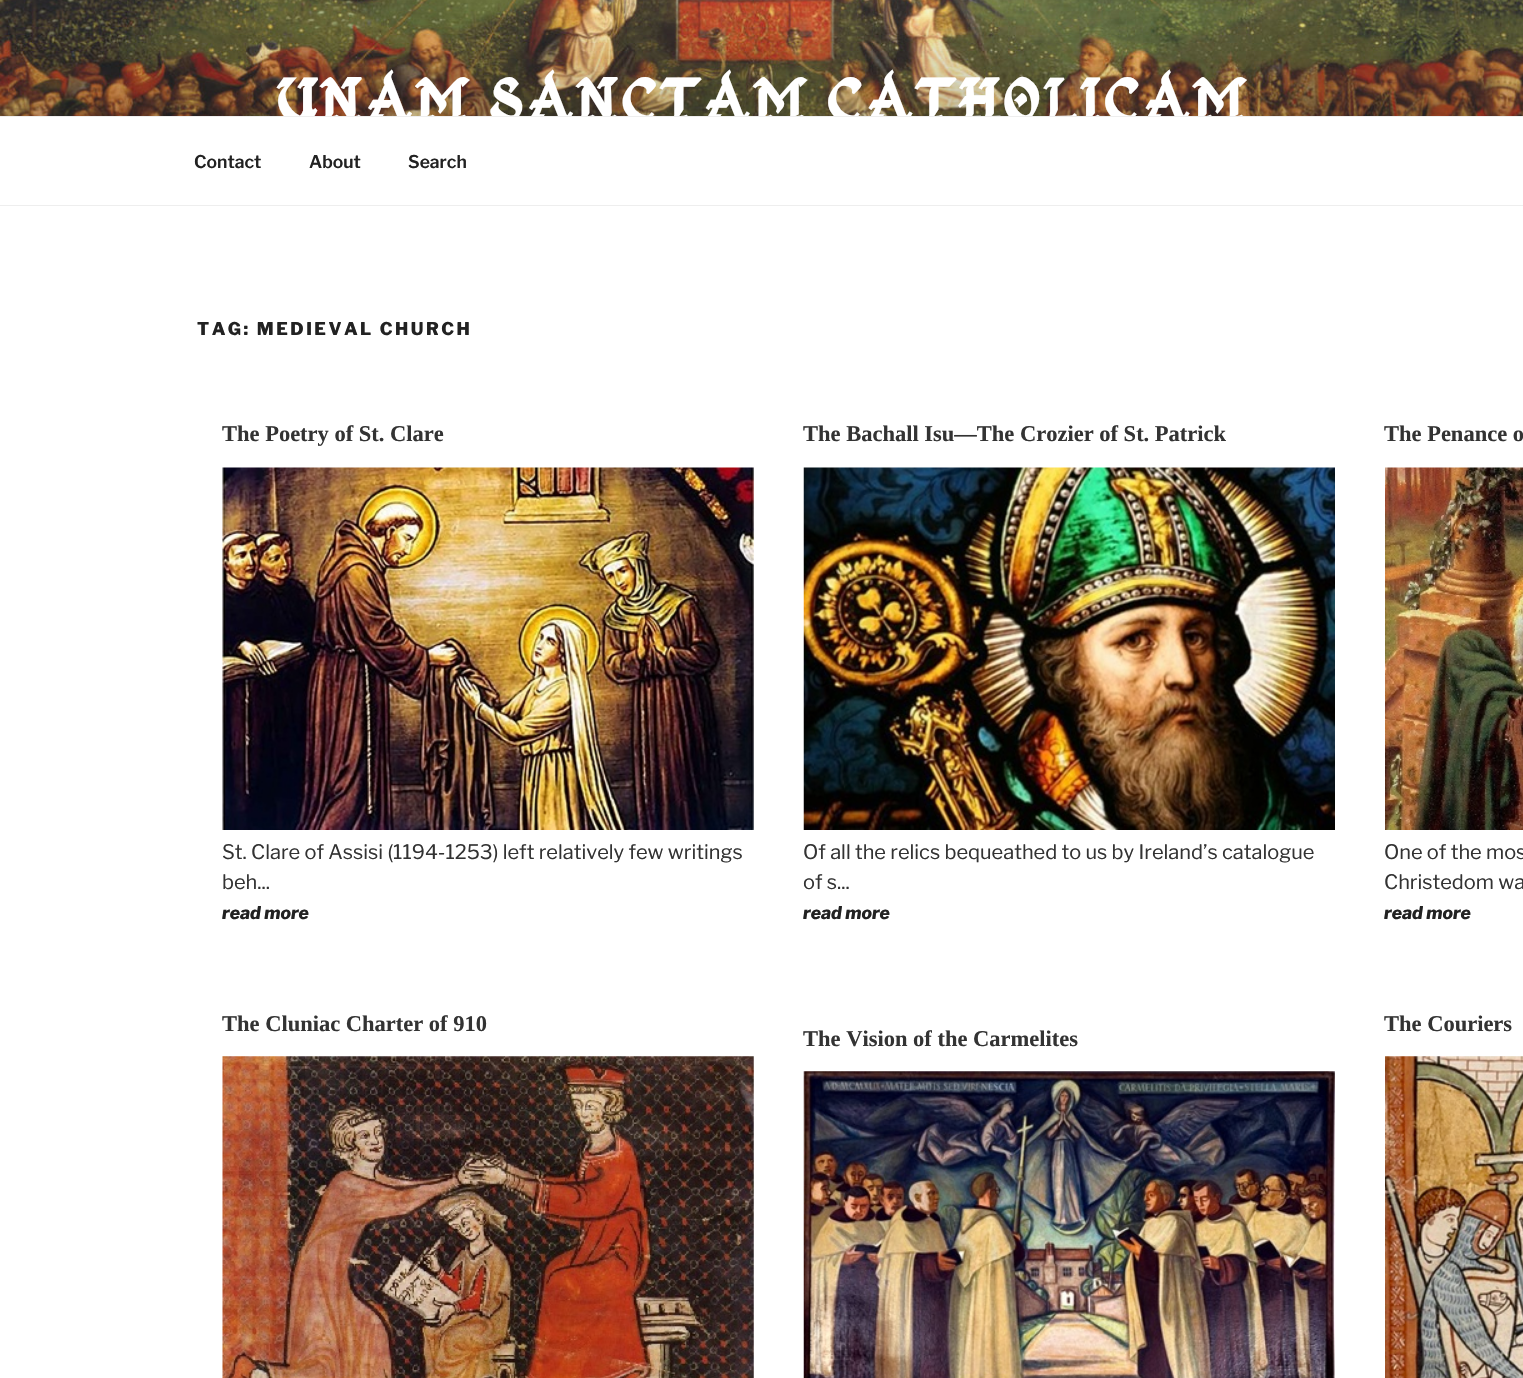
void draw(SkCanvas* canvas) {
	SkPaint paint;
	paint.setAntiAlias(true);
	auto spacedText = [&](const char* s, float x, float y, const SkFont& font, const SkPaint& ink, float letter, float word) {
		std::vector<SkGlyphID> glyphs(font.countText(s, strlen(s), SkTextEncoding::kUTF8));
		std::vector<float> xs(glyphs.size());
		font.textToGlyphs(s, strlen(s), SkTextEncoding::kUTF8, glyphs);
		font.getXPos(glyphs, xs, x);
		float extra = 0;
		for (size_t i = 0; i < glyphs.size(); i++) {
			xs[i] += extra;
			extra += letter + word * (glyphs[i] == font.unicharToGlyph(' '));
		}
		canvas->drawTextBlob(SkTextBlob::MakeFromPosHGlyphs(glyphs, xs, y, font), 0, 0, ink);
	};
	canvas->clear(0xffffffff);
	canvas->drawImageRect(SkImages::DeferredFromEncodedData(SkData::MakeFromFileName("img1.png")), SkRect::MakeXYWH(0, 0, 1523, 116), SkSamplingOptions());
	SkFont f1(fontMgr->matchFamilyStyle("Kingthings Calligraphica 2", SkFontStyle::Bold()), 68.75);
	f1.setSubpixel(true);
	paint.setColor(0xffffffff);
	spacedText("UNAM SANCTAM CATHOLICAM", 275, 124, f1, paint, 5.5, 0);
	paint.setColor(0xffeeeeee);
	canvas->drawRect(SkRect::MakeXYWH(0, 116, 1523, 1), paint);
	canvas->drawRect(SkRect::MakeXYWH(0, 205, 1523, 1), paint);
	SkFont f2(fontMgr->matchFamilyStyle("Libre Franklin", SkFontStyle(600, SkFontStyle::kNormal_Width, SkFontStyle::kUpright_Slant)), 17.5);
	f2.setSubpixel(true);
	paint.setColor(0xff222222);
	canvas->drawString("Contact", 194, 168, f2, paint);
	canvas->drawString("About", 309, 168, f2, paint);
	canvas->drawString("Search", 408, 168, f2, paint);
	SkFont f3(fontMgr->matchFamilyStyle("Libre Franklin", SkFontStyle(800, SkFontStyle::kNormal_Width, SkFontStyle::kUpright_Slant)), 17.5);
	f3.setSubpixel(true);
	spacedText("TAG: MEDIEVAL CHURCH", 197, 335, f3, paint, 2.5, 0);
	SkFont f4(fontMgr->matchFamilyStyle("Liberation Serif", SkFontStyle::Bold()), 22.5);
	f4.setSubpixel(true);
	paint.setColor(0xff333333);
	canvas->drawString("The Poetry of St. Clare", 222, 441, f4, paint);
	canvas->drawImageRect(SkImages::DeferredFromEncodedData(SkData::MakeFromFileName("img2.png")), SkRect::MakeXYWH(222, 467, 532, 363), SkSamplingOptions());
	SkFont f5(fontMgr->matchFamilyStyle("Libre Franklin", SkFontStyle::Normal()), 20);
	f5.setSubpixel(true);
	canvas->drawString("St. Clare of Assisi (1194-1253) left relatively few writings", 222, 859, f5, paint);
	canvas->drawString("beh...", 222, 889, f5, paint);
	SkFont f6(fontMgr->matchFamilyStyle("Libre Franklin", SkFontStyle(800, SkFontStyle::kNormal_Width, SkFontStyle::kItalic_Slant)), 17.5);
	f6.setSubpixel(true);
	paint.setColor(0xff222222);
	canvas->drawString("read more", 222, 919, f6, paint);
	paint.setColor(0xff333333);
	canvas->drawString("The Bachall Isu—The Crozier of St. Patrick", 803, 441, f4, paint);
	canvas->drawImageRect(SkImages::DeferredFromEncodedData(SkData::MakeFromFileName("img3.png")), SkRect::MakeXYWH(803, 467, 532, 363), SkSamplingOptions());
	canvas->drawString("Of all the relics bequeathed to us by Ireland’s catalogue", 803, 859, f5, paint);
	canvas->drawString("of s...", 803, 889, f5, paint);
	paint.setColor(0xff222222);
	canvas->drawString("read more", 803, 919, f6, paint);
	paint.setColor(0xff333333);
	canvas->drawString("The Penance o", 1384, 441, f4, paint);
	canvas->drawImageRect(SkImages::DeferredFromEncodedData(SkData::MakeFromFileName("img4.png")), SkRect::MakeXYWH(1385, 467, 138, 363), SkSamplingOptions());
	canvas->drawString("One of the mos", 1384, 859, f5, paint);
	canvas->drawString("Christedom wa", 1384, 889, f5, paint);
	paint.setColor(0xff222222);
	canvas->drawString("read more", 1384, 919, f6, paint);
	paint.setColor(0xff333333);
	canvas->drawString("The Cluniac Charter of 910", 222, 1031, f4, paint);
	canvas->drawImageRect(SkImages::DeferredFromEncodedData(SkData::MakeFromFileName("img5.png")), SkRect::MakeXYWH(222, 1056, 532, 322), SkSamplingOptions());
	canvas->drawString("The Couriers", 1384, 1031, f4, paint);
	canvas->drawImageRect(SkImages::DeferredFromEncodedData(SkData::MakeFromFileName("img6.png")), SkRect::MakeXYWH(1385, 1056, 138, 322), SkSamplingOptions());
	canvas->drawString("The Vision of the Carmelites", 803, 1046, f4, paint);
	canvas->drawImageRect(SkImages::DeferredFromEncodedData(SkData::MakeFromFileName("img7.png")), SkRect::MakeXYWH(803, 1071, 532, 307), SkSamplingOptions());
}
